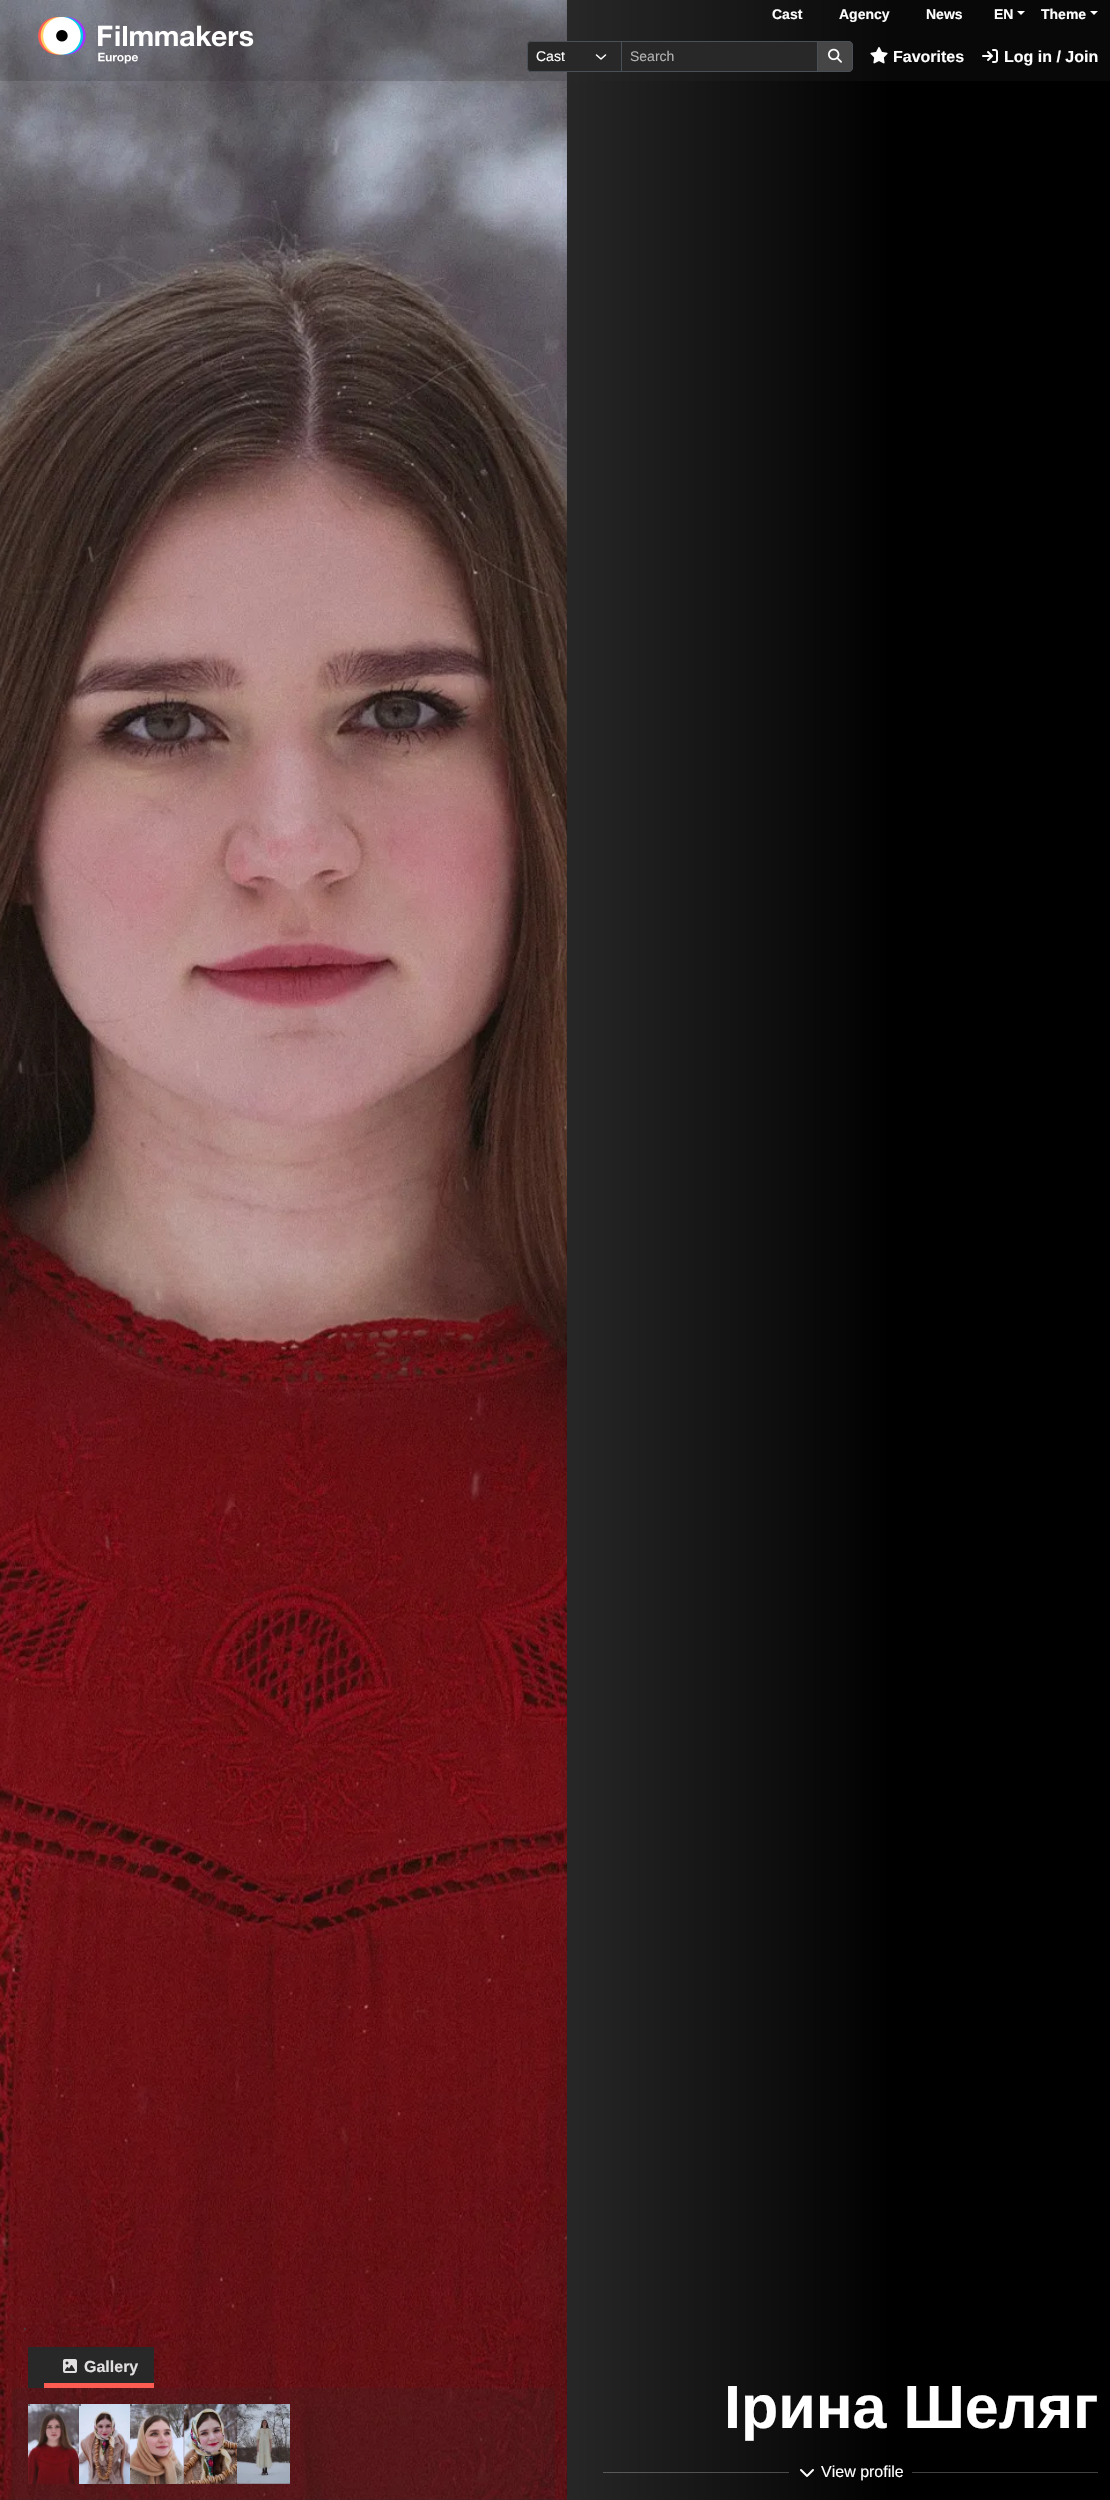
void draw(SkCanvas* canvas) {
	SkPaint paint;
	paint.setAntiAlias(true);
	auto svgPath = [&](const char* data, bool evenOdd = false) {
		SkPath result = *SkParsePath::FromSVGString(data);
		if (evenOdd) result.setFillType(SkPathFillType::kEvenOdd);
		return result;
	};
	canvas->clear(0xff282828);
	canvas->drawImageRect(SkImages::DeferredFromEncodedData(SkData::MakeFromFileName("img5.png")), SkRect::MakeXYWH(0, 0, 567, 2500), SkSamplingOptions());
	{
		const SkColor colors[] = {0xff000000, 0xff000000, 0x00000000};
		const float stops[] = {0, 0.4, 1};
		const SkPoint ends[] = {{1110, 1250}, {555, 1250}};
		paint.setShader(SkGradientShader::MakeLinear(ends, colors, stops, 3, SkTileMode::kClamp));
		paint.setAlpha(255);
	}
	canvas->drawRect(SkRect::MakeXYWH(562, 0, 548, 2500), paint);
	paint.setShader(nullptr);
	paint.setColor(0x33282828);
	canvas->drawRect(SkRect::MakeXYWH(0, 0, 1110, 81), paint);
	canvas->drawImageRect(SkImages::DeferredFromEncodedData(SkData::MakeFromFileName("img1.png")), SkRect::MakeXYWH(38, 17, 216, 47), SkSamplingOptions());
	SkFont f1(fontMgr->matchFamilyStyle("Liberation Sans", SkFontStyle::Bold()), 14);
	f1.setSubpixel(true);
	paint.setColor(0xffffffff);
	canvas->drawString("Cast", 772, 19, f1, paint);
	canvas->drawString("Agency", 839, 19, f1, paint);
	canvas->drawString("News", 926, 19, f1, paint);
	canvas->drawString("EN", 994, 19, f1, paint);
	canvas->drawPath(svgPath("M1017 11H1025L1021 15Z"), paint);
	canvas->drawString("Theme", 1041, 19, f1, paint);
	canvas->drawPath(svgPath("M1090 11H1098L1094 15Z"), paint);
	paint.setColor(0xff282828);
	canvas->drawPath(svgPath("M531 41H622V72H531C529 72 527 70 527 68V45C527 43 529 41 531 41Z"), paint);
	paint.setStroke(true);
	paint.setStrokeWidth(1.5);
	paint.setStrokeCap(SkPaint::kRound_Cap);
	paint.setStrokeJoin(SkPaint::kRound_Join);
	paint.setColor(0xffffffff);
	canvas->drawPath(svgPath("M596.5 55L601 59L605.5 55"), paint);
	paint.setStrokeWidth(1);
	paint.setStrokeCap(SkPaint::kButt_Cap);
	paint.setStrokeJoin(SkPaint::kMiter_Join);
	paint.setColor(0xff495057);
	canvas->drawPath(svgPath("M531 41.5H621.5V71.5H531C529 71.5 527.5 70 527.5 68V45C527.5 43 529 41.5 531 41.5Z"), paint);
	SkFont f2(fontMgr->matchFamilyStyle("Liberation Sans", SkFontStyle::Normal()), 14);
	f2.setSubpixel(true);
	paint.setStroke(false);
	paint.setColor(0xffffffff);
	canvas->drawString("Cast", 536, 61, f2, paint);
	paint.setColor(0xff282828);
	canvas->drawRect(SkRect::MakeXYWH(621.5, 41.5, 196, 30), paint);
	paint.setStroke(true);
	paint.setColor(0xff495057);
	canvas->drawRect(SkRect::MakeXYWH(621.5, 41.5, 196, 30), paint);
	paint.setStroke(false);
	paint.setColor(0xffb3b3b3);
	canvas->drawString("Search", 630, 61, f2, paint);
	paint.setColor(0xff464646);
	canvas->drawPath(svgPath("M817.5 41.5H849C851 41.5 852.5 43 852.5 45V68C852.5 70 851 71.5 849 71.5H817.5Z"), paint);
	paint.setStroke(true);
	paint.setColor(0xff495057);
	canvas->drawPath(svgPath("M817.5 41.5H849C851 41.5 852.5 43 852.5 45V68C852.5 70 851 71.5 849 71.5H817.5Z"), paint);
	canvas->drawImageRect(SkImages::DeferredFromEncodedData(SkData::MakeFromFileName("img2.png")), SkRect::MakeXYWH(828, 48, 14, 15), SkSamplingOptions());
	canvas->drawImageRect(SkImages::DeferredFromEncodedData(SkData::MakeFromFileName("img3.png")), SkRect::MakeXYWH(870, 47, 18, 17), SkSamplingOptions());
	SkFont f3(fontMgr->matchFamilyStyle("Liberation Sans", SkFontStyle::Bold()), 16);
	f3.setSubpixel(true);
	paint.setStroke(false);
	paint.setColor(0xffffffff);
	canvas->drawString("Favorites", 893, 62, f3, paint);
	canvas->drawImageRect(SkImages::DeferredFromEncodedData(SkData::MakeFromFileName("img4.png")), SkRect::MakeXYWH(982, 49, 16, 14), SkSamplingOptions());
	canvas->drawString("Log in / Join", 1004, 62, f3, paint);
	paint.setColor(0xb3464646);
	canvas->drawRect(SkRect::MakeXYWH(24, 2328, 2, 2), paint);
	paint.setColor(0xff282828);
	canvas->drawRect(SkRect::MakeXYWH(28, 2347, 126, 41), paint);
	paint.setColor(0xfffe5c53);
	canvas->drawRect(SkRect::MakeXYWH(44, 2383, 110, 5), paint);
	canvas->drawImageRect(SkImages::DeferredFromEncodedData(SkData::MakeFromFileName("img6.png")), SkRect::MakeXYWH(63, 2359, 14, 14), SkSamplingOptions());
	paint.setColor(0xffe1dfdf);
	canvas->drawString("Gallery", 84, 2372, f3, paint);
	paint.setColor(0x33282828);
	canvas->drawPath(svgPath("M16 2388H551C553 2388 555 2390 555 2392V2500H12V2392C12 2390 14 2388 16 2388Z"), paint);
	canvas->drawImageRect(SkImages::DeferredFromEncodedData(SkData::MakeFromFileName("img7.png")), SkRect::MakeXYWH(28, 2404, 51, 80), SkSamplingOptions());
	paint.setColor(0xb3464646);
	canvas->drawRect(SkRect::MakeXYWH(28, 2404, 2, 2), paint);
	canvas->drawImageRect(SkImages::DeferredFromEncodedData(SkData::MakeFromFileName("img8.png")), SkRect::MakeXYWH(79, 2404, 51, 80), SkSamplingOptions());
	paint.setColor(0xff6e7179);
	canvas->drawRect(SkRect::MakeXYWH(79, 2404, 2, 2), paint);
	canvas->drawImageRect(SkImages::DeferredFromEncodedData(SkData::MakeFromFileName("img9.png")), SkRect::MakeXYWH(130, 2404, 54, 80), SkSamplingOptions());
	paint.setColor(0xb3464646);
	canvas->drawRect(SkRect::MakeXYWH(130, 2404, 2, 2), paint);
	canvas->drawImageRect(SkImages::DeferredFromEncodedData(SkData::MakeFromFileName("img10.png")), SkRect::MakeXYWH(183, 2404, 55, 80), SkSamplingOptions());
	canvas->drawRect(SkRect::MakeXYWH(184, 2404, 2, 2), paint);
	canvas->drawImageRect(SkImages::DeferredFromEncodedData(SkData::MakeFromFileName("img11.png")), SkRect::MakeXYWH(237, 2404, 53, 80), SkSamplingOptions());
	canvas->drawRect(SkRect::MakeXYWH(237, 2404, 2, 2), paint);
	SkFont f4(fontMgr->matchFamilyStyle("Liberation Sans", SkFontStyle::Bold()), 61);
	f4.setSubpixel(true);
	paint.setColor(0xffffffff);
	canvas->drawString("Ірина Шеляг", 724, 2428, f4, paint);
	paint.setColor(0x40ffffff);
	canvas->drawRect(SkRect::MakeXYWH(603, 2472, 186, 1), paint);
	canvas->drawImageRect(SkImages::DeferredFromEncodedData(SkData::MakeFromFileName("img12.png")), SkRect::MakeXYWH(800, 2469, 14, 8), SkSamplingOptions());
	SkFont f5(fontMgr->matchFamilyStyle("Liberation Sans", SkFontStyle::Normal()), 16);
	f5.setSubpixel(true);
	paint.setColor(0xffffffff);
	canvas->drawString("View profile", 821, 2477, f5, paint);
	paint.setColor(0xff404040);
	canvas->drawRect(SkRect::MakeXYWH(912, 2472, 186, 1), paint);
}
